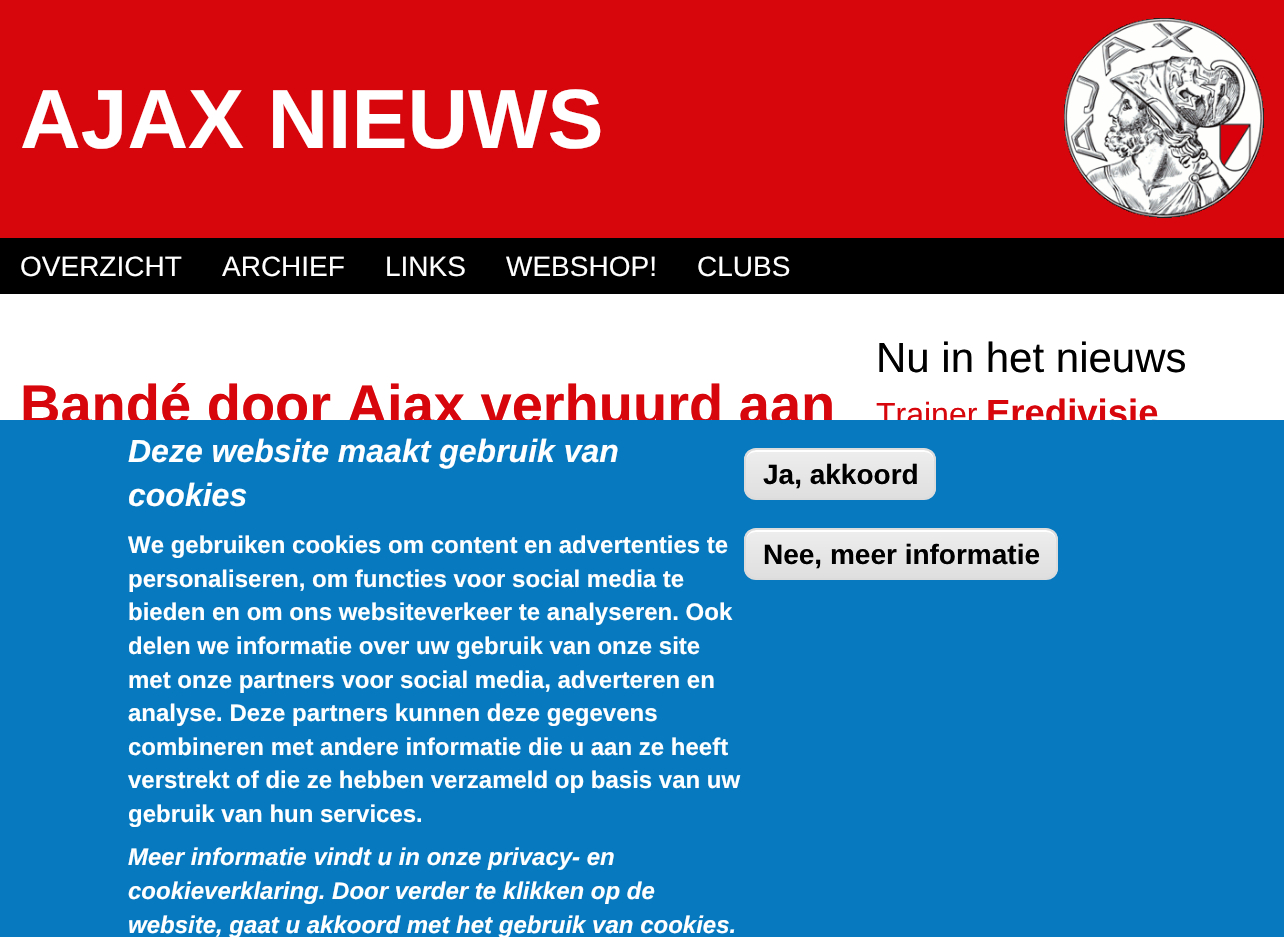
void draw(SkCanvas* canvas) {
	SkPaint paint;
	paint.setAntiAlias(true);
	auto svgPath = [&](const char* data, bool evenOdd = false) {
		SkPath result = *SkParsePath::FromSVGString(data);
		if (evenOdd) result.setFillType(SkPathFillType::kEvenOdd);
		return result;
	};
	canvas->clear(0xffffffff);
	paint.setColor(0xffd7060c);
	canvas->drawRect(SkRect::MakeXYWH(0, 0, 1284, 238), paint);
	SkFont f1(fontMgr->matchFamilyStyle("Liberation Sans", SkFontStyle::Bold()), 84);
	f1.setSubpixel(true);
	paint.setColor(0xffffffff);
	canvas->drawString("AJAX NIEUWS", 20, 148, f1, paint);
	canvas->drawImageRect(SkImages::DeferredFromEncodedData(SkData::MakeFromFileName("img1.png")), SkRect::MakeXYWH(1064, 18, 200, 200), SkSamplingOptions());
	paint.setColor(0xff000000);
	canvas->drawRect(SkRect::MakeXYWH(0, 238, 1284, 56), paint);
	SkFont f2(fontMgr->matchFamilyStyle("Liberation Sans", SkFontStyle::Normal()), 28);
	f2.setSubpixel(true);
	paint.setColor(0xffffffff);
	canvas->drawString("OVERZICHT", 20, 276, f2, paint);
	canvas->drawString("ARCHIEF", 222, 276, f2, paint);
	canvas->drawString("LINKS", 385, 276, f2, paint);
	canvas->drawString("WEBSHOP!", 506, 276, f2, paint);
	canvas->drawString("CLUBS", 697, 276, f2, paint);
	SkFont f3(fontMgr->matchFamilyStyle("Liberation Sans", SkFontStyle::Bold()), 56);
	f3.setSubpixel(true);
	paint.setColor(0xffd7060c);
	canvas->drawString("Bandé door Ajax verhuurd aan", 20, 424, f3, paint);
	SkFont f4(fontMgr->matchFamilyStyle("Liberation Sans", SkFontStyle::Normal()), 42);
	f4.setSubpixel(true);
	paint.setColor(0xff000000);
	canvas->drawString("Nu in het nieuws", 876, 372, f4, paint);
	SkFont f5(fontMgr->matchFamilyStyle("Liberation Sans", SkFontStyle::Normal()), 32);
	f5.setSubpixel(true);
	paint.setColor(0xffd7060c);
	canvas->drawString("Trainer", 876, 425, f5, paint);
	SkFont f6(fontMgr->matchFamilyStyle("Liberation Sans", SkFontStyle::Bold()), 36.5);
	f6.setSubpixel(true);
	canvas->drawString("Eredivisie", 986, 425, f6, paint);
	paint.setColor(0xff0779bf);
	canvas->drawRect(SkRect::MakeXYWH(0, 420, 1284, 517), paint);
	SkFont f7(fontMgr->matchFamilyStyle("Liberation Sans", SkFontStyle::BoldItalic()), 32);
	f7.setSubpixel(true);
	paint.setColor(0xffffffff);
	canvas->drawString("Deze website maakt gebruik van", 128, 462, f7, paint);
	canvas->drawString("cookies", 128, 506, f7, paint);
	SkFont f8(fontMgr->matchFamilyStyle("Liberation Sans", SkFontStyle::Bold()), 24);
	f8.setSubpixel(true);
	canvas->drawString("We gebruiken cookies om content en advertenties te", 128, 553, f8, paint);
	canvas->drawString("personaliseren, om functies voor social media te", 128, 587, f8, paint);
	canvas->drawString("bieden en om ons websiteverkeer te analyseren. Ook", 128, 620, f8, paint);
	canvas->drawString("delen we informatie over uw gebruik van onze site", 128, 654, f8, paint);
	canvas->drawString("met onze partners voor social media, adverteren en", 128, 688, f8, paint);
	canvas->drawString("analyse. Deze partners kunnen deze gegevens", 128, 721, f8, paint);
	canvas->drawString("combineren met andere informatie die u aan ze heeft", 128, 755, f8, paint);
	canvas->drawString("verstrekt of die ze hebben verzameld op basis van uw", 128, 788, f8, paint);
	canvas->drawString("gebruik van hun services.", 128, 822, f8, paint);
	SkFont f9(fontMgr->matchFamilyStyle("Liberation Sans", SkFontStyle::BoldItalic()), 24);
	f9.setSubpixel(true);
	canvas->drawString("Meer informatie vindt u in onze privacy- en", 128, 865, f9, paint);
	canvas->drawString("cookieverklaring. Door verder te klikken op de", 128, 899, f9, paint);
	canvas->drawString("website, gaat u akkoord met het gebruik van cookies.", 128, 933, f9, paint);
	canvas->save();
	canvas->clipPath(svgPath("M756 448H924C930.5 448 936 453.5 936 460V488C936 494.5 930.5 500 924 500H756C749.5 500 744 494.5 744 488V460C744 453.5 749.5 448 756 448Z"), true);
	{
		const SkColor colors[] = {0xffededed, 0xffdfdfdf};
		const float stops[] = {0.05, 1};
		const SkPoint ends[] = {{840, 450}, {840, 498}};
		paint.setShader(SkGradientShader::MakeLinear(ends, colors, stops, 2, SkTileMode::kClamp));
		paint.setAlpha(255);
	}
	canvas->drawRect(SkRect::MakeXYWH(744, 450, 192, 48), paint);
	canvas->restore();
	paint.setShader(nullptr);
	paint.setColor(0xffffffff);
	canvas->drawPath(svgPath("M756 452H924C930 452 934 456 934 462V460C934 454 930 450 924 450H756C750 450 746 454 746 460V462C746 456 750 452 756 452Z"), paint);
	paint.setStroke(true);
	paint.setStrokeWidth(2);
	paint.setColor(0xffdcdcdc);
	canvas->drawRoundRect(SkRect::MakeXYWH(745, 449, 190, 50), 11, 11, paint);
	SkFont f10(fontMgr->matchFamilyStyle("Liberation Sans", SkFontStyle::Bold()), 28);
	f10.setSubpixel(true);
	paint.setStroke(false);
	paint.setColor(0xff000000);
	canvas->drawString("Ja, akkoord", 763, 484, f10, paint);
	canvas->save();
	canvas->clipPath(svgPath("M756 528H1046C1052.5 528 1058 533.5 1058 540V568C1058 574.5 1052.5 580 1046 580H756C749.5 580 744 574.5 744 568V540C744 533.5 749.5 528 756 528Z"), true);
	{
		const SkColor colors[] = {0xffededed, 0xffdfdfdf};
		const float stops[] = {0.05, 1};
		const SkPoint ends[] = {{901, 530}, {901, 578}};
		paint.setShader(SkGradientShader::MakeLinear(ends, colors, stops, 2, SkTileMode::kClamp));
		paint.setAlpha(255);
	}
	canvas->drawRect(SkRect::MakeXYWH(744, 530, 314, 48), paint);
	canvas->restore();
	paint.setShader(nullptr);
	paint.setColor(0xffffffff);
	canvas->drawPath(svgPath("M756 532H1046C1052 532 1056 536 1056 542V540C1056 534 1052 530 1046 530H756C750 530 746 534 746 540V542C746 536 750 532 756 532Z"), paint);
	paint.setStroke(true);
	paint.setColor(0xffdcdcdc);
	canvas->drawRoundRect(SkRect::MakeXYWH(745, 529, 312, 50), 11, 11, paint);
	paint.setStroke(false);
	paint.setColor(0xff000000);
	canvas->drawString("Nee, meer informatie", 763, 564, f10, paint);
}
